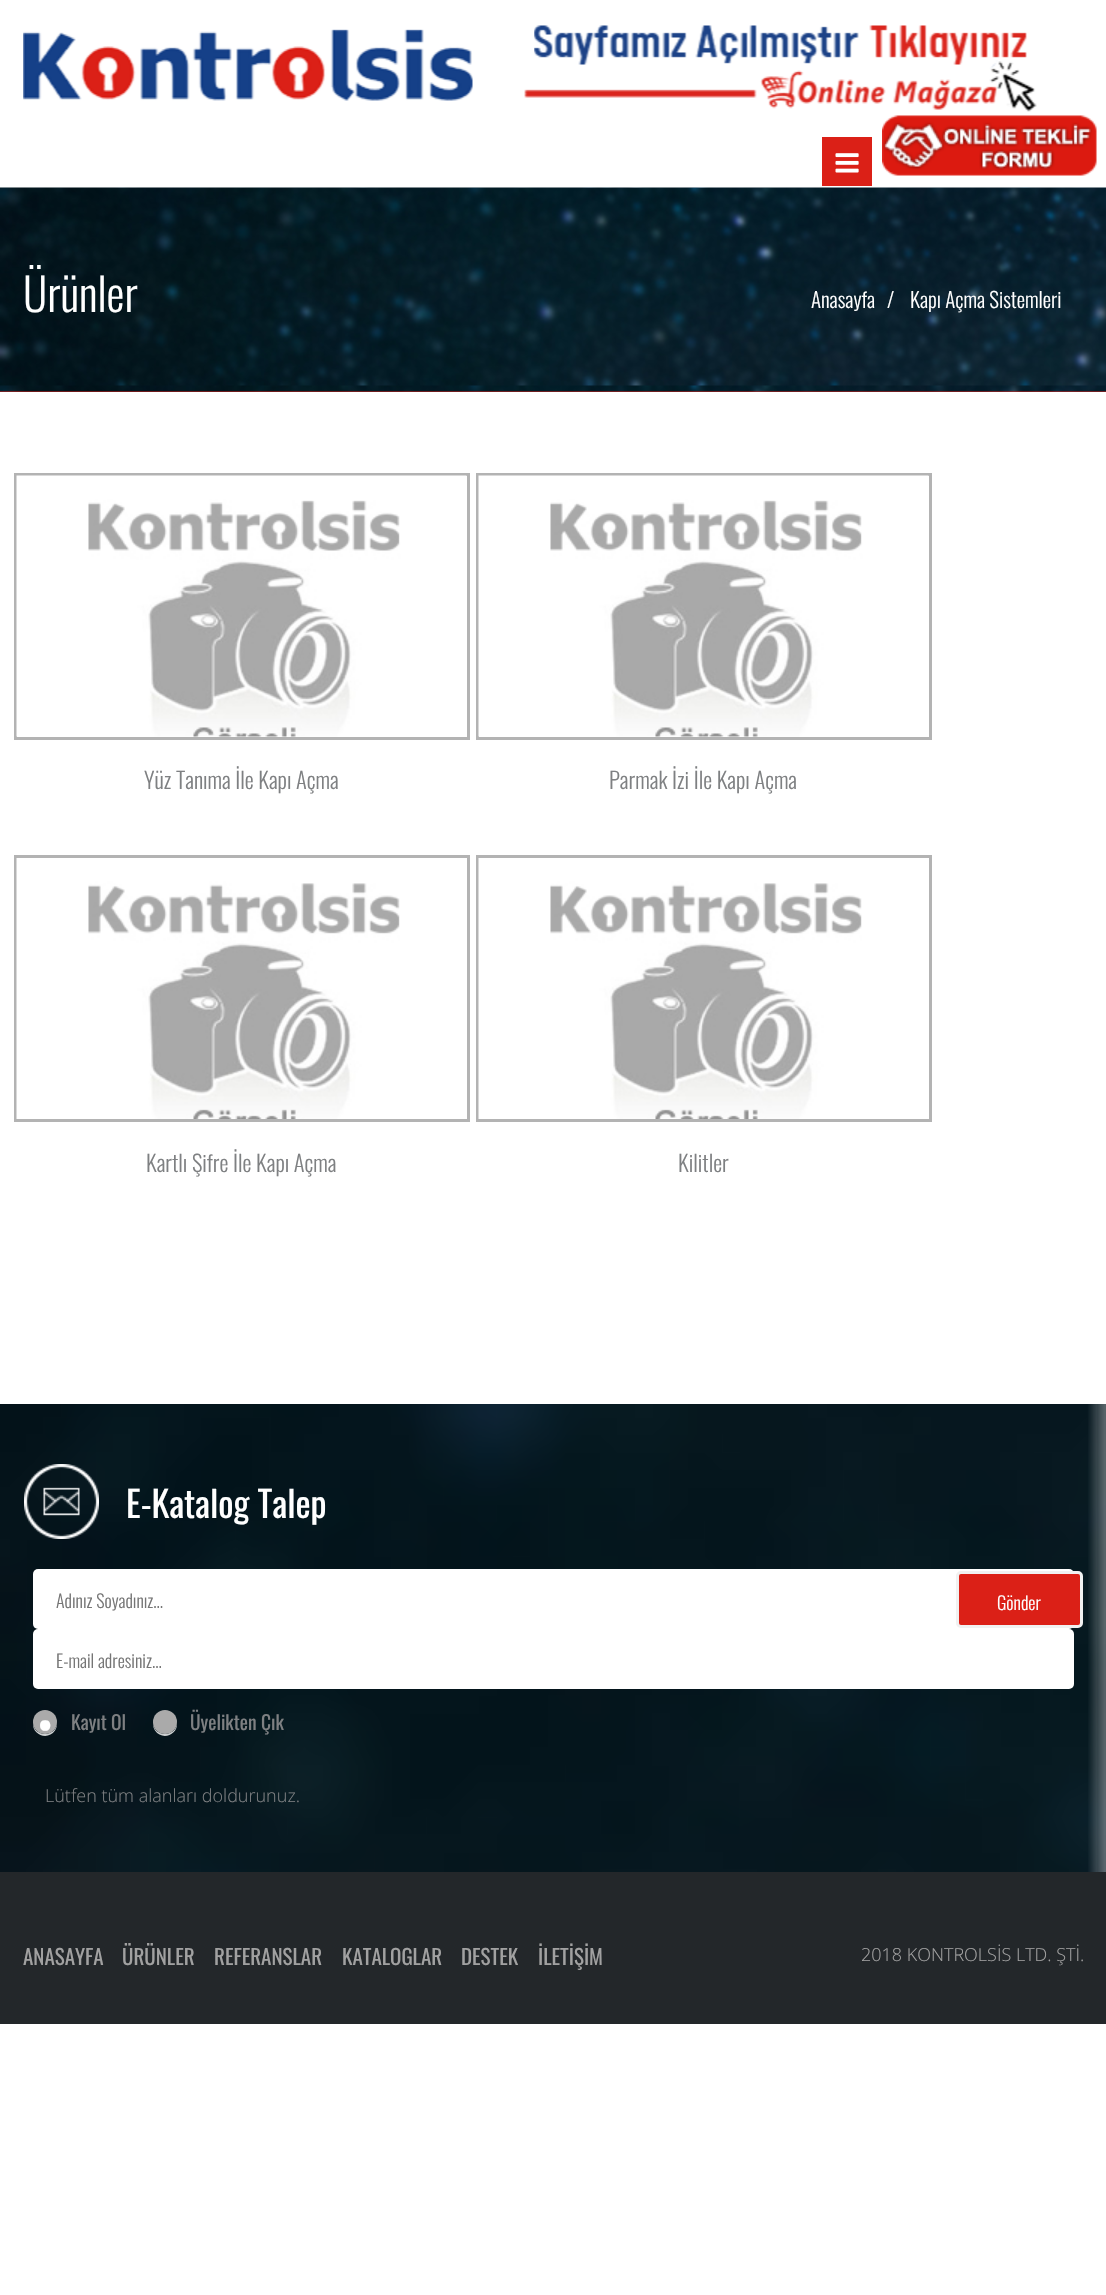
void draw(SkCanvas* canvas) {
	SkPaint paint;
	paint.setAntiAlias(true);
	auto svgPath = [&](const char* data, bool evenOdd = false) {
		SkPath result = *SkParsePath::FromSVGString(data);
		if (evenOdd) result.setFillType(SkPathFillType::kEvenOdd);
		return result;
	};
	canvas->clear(0xffffffff);
	canvas->drawImageRect(SkImages::DeferredFromEncodedData(SkData::MakeFromFileName("img1.png")), SkRect::MakeXYWH(23, 29, 450, 72), SkSamplingOptions());
	canvas->drawImageRect(SkImages::DeferredFromEncodedData(SkData::MakeFromFileName("img2.png")), SkRect::MakeXYWH(524, 25, 513, 87), SkSamplingOptions());
	paint.setColor(0xffdb2017);
	canvas->drawRect(SkRect::MakeXYWH(822, 137, 50, 49), paint);
	canvas->drawImageRect(SkImages::DeferredFromEncodedData(SkData::MakeFromFileName("img3.png")), SkRect::MakeXYWH(835, 153, 24, 20), SkSamplingOptions());
	canvas->drawImageRect(SkImages::DeferredFromEncodedData(SkData::MakeFromFileName("img4.png")), SkRect::MakeXYWH(882, 115, 215, 61), SkSamplingOptions());
	canvas->drawRect(SkRect::MakeXYWH(0, 391, 1106, 1), paint);
	canvas->drawImageRect(SkImages::DeferredFromEncodedData(SkData::MakeFromFileName("img5.png")), SkRect::MakeXYWH(0, 187, 1106, 205), SkSamplingOptions());
	SkFont f1(fontMgr->matchFamilyStyle("Oswald", SkFontStyle(300, SkFontStyle::kNormal_Width, SkFontStyle::kUpright_Slant)), 45);
	f1.setSubpixel(true);
	paint.setColor(0xffffffff);
	canvas->drawString("Ürünler", 23, 312, f1, paint);
	SkFont f2(fontMgr->matchFamilyStyle("Oswald", SkFontStyle(300, SkFontStyle::kNormal_Width, SkFontStyle::kUpright_Slant)), 21);
	f2.setSubpixel(true);
	canvas->drawString("Anasayfa", 811, 308, f2, paint);
	canvas->drawString("/", 887, 308, f2, paint);
	canvas->drawString("Kapı Açma Sistemleri", 910, 308, f2, paint);
	paint.setStroke(true);
	paint.setStrokeWidth(3);
	paint.setColor(0xffb3b3b3);
	canvas->drawRect(SkRect::MakeXYWH(15.5, 474.5, 453, 264), paint);
	canvas->drawImageRect(SkImages::DeferredFromEncodedData(SkData::MakeFromFileName("img6.png")), SkRect::MakeXYWH(16, 475, 451, 262), SkSamplingOptions());
	SkFont f3(fontMgr->matchFamilyStyle("Oswald", SkFontStyle(300, SkFontStyle::kNormal_Width, SkFontStyle::kUpright_Slant)), 22.5);
	f3.setSubpixel(true);
	paint.setStroke(false);
	paint.setColor(0xff7e8082);
	canvas->drawString("Yüz Tanıma İle Kapı Açma", 144, 789, f3, paint);
	paint.setStroke(true);
	paint.setColor(0xffb3b3b3);
	canvas->drawRect(SkRect::MakeXYWH(477.5, 474.5, 453, 264), paint);
	canvas->drawImageRect(SkImages::DeferredFromEncodedData(SkData::MakeFromFileName("img6.png")), SkRect::MakeXYWH(478, 475, 451, 262), SkSamplingOptions());
	paint.setStroke(false);
	paint.setColor(0xff7e8082);
	canvas->drawString("Parmak İzi İle Kapı Açma", 609, 789, f3, paint);
	paint.setStroke(true);
	paint.setColor(0xffb3b3b3);
	canvas->drawRect(SkRect::MakeXYWH(15.5, 856.5, 453, 264), paint);
	canvas->drawImageRect(SkImages::DeferredFromEncodedData(SkData::MakeFromFileName("img7.png")), SkRect::MakeXYWH(16, 858, 384, 261), SkSamplingOptions());
	paint.setStroke(false);
	paint.setColor(0xff7e8082);
	canvas->drawString("Kartlı Şifre İle Kapı Açma", 146, 1172, f3, paint);
	paint.setStroke(true);
	paint.setColor(0xffb3b3b3);
	canvas->drawRect(SkRect::MakeXYWH(477.5, 856.5, 453, 264), paint);
	canvas->drawImageRect(SkImages::DeferredFromEncodedData(SkData::MakeFromFileName("img7.png")), SkRect::MakeXYWH(478, 858, 384, 261), SkSamplingOptions());
	paint.setStroke(false);
	paint.setColor(0xff7e8082);
	canvas->drawString("Kilitler", 678, 1172, f3, paint);
	canvas->drawImageRect(SkImages::DeferredFromEncodedData(SkData::MakeFromFileName("img8.png")), SkRect::MakeXYWH(0, 1404, 1106, 468), SkSamplingOptions());
	canvas->drawImageRect(SkImages::DeferredFromEncodedData(SkData::MakeFromFileName("img9.png")), SkRect::MakeXYWH(24, 1464, 75, 75), SkSamplingOptions());
	SkFont f4(fontMgr->matchFamilyStyle("Oswald", SkFontStyle::Normal()), 36);
	f4.setSubpixel(true);
	paint.setColor(0xffffffff);
	canvas->drawString("E-Katalog Talep", 126, 1518, f4, paint);
	canvas->drawRoundRect(SkRect::MakeXYWH(33, 1569, 1041, 60), 5, 5, paint);
	SkFont f5(fontMgr->matchFamilyStyle("Oswald", SkFontStyle(300, SkFontStyle::kNormal_Width, SkFontStyle::kUpright_Slant)), 18);
	f5.setSubpixel(true);
	paint.setColor(0xff757575);
	canvas->drawString("Adınız Soyadınız...", 56, 1608, f5, paint);
	paint.setColor(0xffffffff);
	canvas->drawRoundRect(SkRect::MakeXYWH(33, 1629, 1041, 60), 5, 5, paint);
	paint.setColor(0xff757575);
	canvas->drawString("E-mail adresiniz...", 56, 1668, f5, paint);
	paint.setColor(0xffcdd0d1);
	canvas->drawPath(svgPath("M33 1723C32 1735 48 1741 55 1730.5C56.5 1728.5 57 1725.5 57 1723C56 1737.5 34 1737.5 33 1723Z"), paint);
	paint.setColor(0xffaaaaaa);
	canvas->drawCircle(45, 1722, 12, paint);
	SkFont f6(fontMgr->matchFamilyStyle("Oswald", SkFontStyle::Normal()), 45);
	f6.setSubpixel(true);
	paint.setColor(0xffffffff);
	canvas->drawString("•", 37, 1743, f6, paint);
	SkFont f7(fontMgr->matchFamilyStyle("Oswald", SkFontStyle::Normal()), 19.5);
	f7.setSubpixel(true);
	paint.setColor(0xff7e8082);
	canvas->drawString("Kayıt Ol", 71, 1730, f7, paint);
	paint.setColor(0xffcdd0d1);
	canvas->drawPath(svgPath("M153 1723C153 1725.5 153.5 1728.5 155 1730.5C162 1741 178 1735 177 1723C176 1737.5 154 1737.5 153 1723Z"), paint);
	paint.setColor(0xffaaaaaa);
	canvas->drawCircle(165, 1722, 12, paint);
	paint.setColor(0xff7e8082);
	canvas->drawString("Üyelikten Çık", 190, 1730, f7, paint);
	paint.setColor(0xffdb2017);
	canvas->drawRoundRect(SkRect::MakeXYWH(957.5, 1572.5, 124, 54), 3.5, 3.5, paint);
	paint.setStroke(true);
	paint.setColor(0xfff1f1f1);
	canvas->drawRoundRect(SkRect::MakeXYWH(957.5, 1572.5, 124, 54), 3.5, 3.5, paint);
	paint.setStroke(false);
	paint.setColor(0xffffffff);
	canvas->drawString("Gönder", 997, 1610, f5, paint);
	SkFont f8(fontMgr->matchFamilyStyle("Open Sans", SkFontStyle(300, SkFontStyle::kNormal_Width, SkFontStyle::kUpright_Slant)), 18);
	f8.setSubpixel(true);
	paint.setColor(0xff7e8082);
	canvas->drawString("Lütfen tüm alanları doldurunuz.", 45, 1802, f8, paint);
	paint.setColor(0xff23272a);
	canvas->drawRect(SkRect::MakeXYWH(0, 1872, 1106, 152), paint);
	SkFont f9(fontMgr->matchFamilyStyle("Oswald", SkFontStyle::Normal()), 21);
	f9.setSubpixel(true);
	paint.setColor(0xffa1a1a1);
	canvas->drawString("ANASAYFA", 23, 1965, f9, paint);
	canvas->drawString("ÜRÜNLER", 122, 1965, f9, paint);
	canvas->drawString("REFERANSLAR", 214, 1965, f9, paint);
	canvas->drawString("KATALOGLAR", 342, 1965, f9, paint);
	canvas->drawString("DESTEK", 461, 1965, f9, paint);
	canvas->drawString("İLETİŞİM", 538, 1965, f9, paint);
	canvas->drawString("2018 KONTROLSİS LTD. ŞTİ.", 861, 1961, f8, paint);
}
